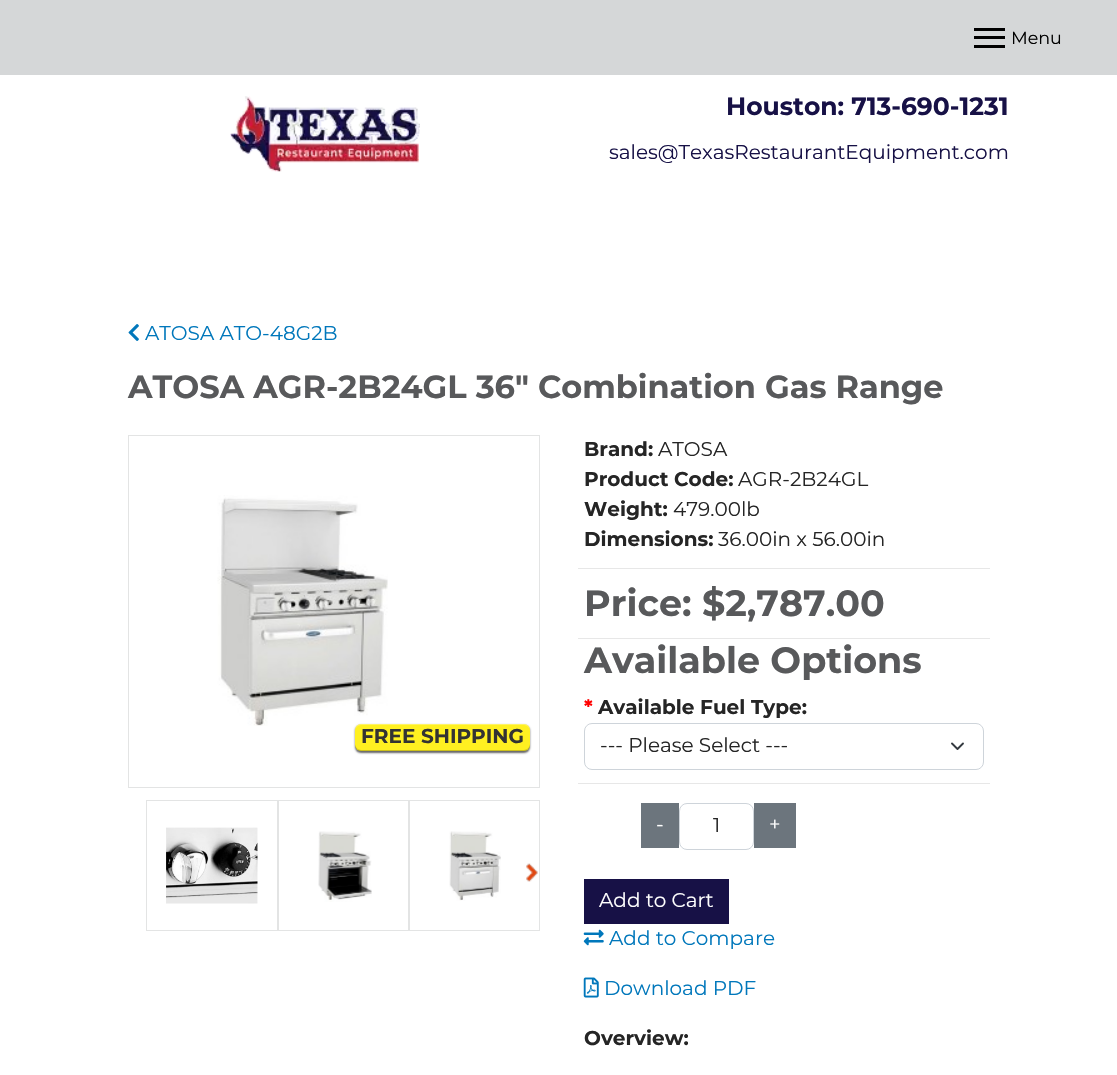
void draw(SkCanvas* canvas) {
	SkPaint paint;
	paint.setAntiAlias(true);
	auto svgPath = [&](const char* data, bool evenOdd = false) {
		SkPath result = *SkParsePath::FromSVGString(data);
		if (evenOdd) result.setFillType(SkPathFillType::kEvenOdd);
		return result;
	};
	canvas->clear(0xffffffff);
	paint.setColor(0xffd5d7d8);
	canvas->drawRect(SkRect::MakeXYWH(0, 0, 1117, 75), paint);
	paint.setColor(0xff000000);
	canvas->drawRect(SkRect::MakeXYWH(974, 28, 31, 3), paint);
	canvas->drawRect(SkRect::MakeXYWH(974, 36, 31, 3), paint);
	canvas->drawRect(SkRect::MakeXYWH(974, 45, 31, 3), paint);
	SkFont f1(fontMgr->matchFamilyStyle("Montserrat", SkFontStyle::Normal()), 17.5);
	f1.setSubpixel(true);
	canvas->drawString("Menu", 1011, 44, f1, paint);
	canvas->drawImageRect(SkImages::DeferredFromEncodedData(SkData::MakeFromFileName("img1.png")), SkRect::MakeXYWH(230, 96, 190, 76), SkSamplingOptions());
	SkFont f2(fontMgr->matchFamilyStyle("Montserrat", SkFontStyle::Bold()), 25);
	f2.setSubpixel(true);
	paint.setColor(0xff171146);
	canvas->drawString("Houston: 713-690-1231", 726, 115, f2, paint);
	SkFont f3(fontMgr->matchFamilyStyle("Montserrat", SkFontStyle::Normal()), 20);
	f3.setSubpixel(true);
	canvas->drawString("sales@TexasRestaurantEquipment.com", 609, 159, f3, paint);
	canvas->drawImageRect(SkImages::DeferredFromEncodedData(SkData::MakeFromFileName("img2.png")), SkRect::MakeXYWH(128, 324, 11, 17), SkSamplingOptions());
	paint.setColor(0xff0077bb);
	canvas->drawString("ATOSA ATO-48G2B", 145, 340, f3, paint);
	SkFont f4(fontMgr->matchFamilyStyle("Montserrat", SkFontStyle::Bold()), 32);
	f4.setSubpixel(true);
	paint.setColor(0xff58595b);
	canvas->drawString("ATOSA AGR-2B24GL 36\" Combination Gas Range", 128, 398, f4, paint);
	paint.setStroke(true);
	paint.setStrokeWidth(1);
	paint.setColor(0xffe3e4e4);
	canvas->drawRect(SkRect::MakeXYWH(128.5, 435.5, 411, 352), paint);
	canvas->drawImageRect(SkImages::DeferredFromEncodedData(SkData::MakeFromFileName("img3.png")), SkRect::MakeXYWH(217, 495, 171, 231), SkSamplingOptions());
	paint.setStroke(false);
	paint.setColor(0x99000000);
	paint.setMaskFilter(SkMaskFilter::MakeBlur(kNormal_SkBlurStyle, 1));
	canvas->drawRoundRect(SkRect::MakeXYWH(355, 725, 175, 28), 6, 6, paint);
	paint.setMaskFilter(nullptr);
	paint.setColor(0xfffff021);
	canvas->drawRoundRect(SkRect::MakeXYWH(355, 724, 175, 27), 6, 6, paint);
	paint.setColor(0x33000000);
	canvas->drawPath(svgPath("M355 744V745C355 748 358 751 361 751H524C527 751 530 748 530 745V744C530 747 527 750 524 750H361C358 750 355 747 355 744Z"), paint);
	paint.setColor(0x4dffffff);
	canvas->drawPath(svgPath("M361 725H524C527 725 530 728 530 731V730C530 727 527 724 524 724H361C358 724 355 727 355 730V731C355 728 358 725 361 725Z"), paint);
	SkFont f5(fontMgr->matchFamilyStyle("Montserrat", SkFontStyle::Bold()), 20);
	f5.setSubpixel(true);
	paint.setColor(0xff333333);
	canvas->drawString("FREE SHIPPING", 361, 743, f5, paint);
	paint.setStroke(true);
	paint.setColor(0xffe3e4e4);
	canvas->drawRect(SkRect::MakeXYWH(146.5, 800.5, 131, 130), paint);
	canvas->drawImageRect(SkImages::DeferredFromEncodedData(SkData::MakeFromFileName("img4.png")), SkRect::MakeXYWH(166, 827, 92, 77), SkSamplingOptions());
	canvas->drawRect(SkRect::MakeXYWH(278.5, 800.5, 130, 130), paint);
	canvas->drawImageRect(SkImages::DeferredFromEncodedData(SkData::MakeFromFileName("img5.png")), SkRect::MakeXYWH(318, 831, 54, 71), SkSamplingOptions());
	canvas->drawRect(SkRect::MakeXYWH(409.5, 800.5, 130, 130), paint);
	canvas->drawImageRect(SkImages::DeferredFromEncodedData(SkData::MakeFromFileName("img6.png")), SkRect::MakeXYWH(449, 831, 52, 70), SkSamplingOptions());
	canvas->drawImageRect(SkImages::DeferredFromEncodedData(SkData::MakeFromFileName("img7.png")), SkRect::MakeXYWH(526, 863, 12, 19), SkSamplingOptions());
	paint.setStroke(false);
	paint.setColor(0xffe7e7e7);
	canvas->drawRect(SkRect::MakeXYWH(578, 568, 412, 1), paint);
	paint.setColor(0xff252525);
	canvas->drawString("Brand:", 584, 456, f5, paint);
	canvas->drawString("ATOSA", 658, 456, f3, paint);
	canvas->drawString("Product Code:", 584, 486, f5, paint);
	canvas->drawString("AGR-2B24GL", 738, 486, f3, paint);
	canvas->drawString("Weight:", 584, 516, f5, paint);
	canvas->drawString("479.00lb", 673, 516, f3, paint);
	canvas->drawString("Dimensions:", 584, 546, f5, paint);
	canvas->drawString("36.00in x 56.00in", 718, 546, f3, paint);
	paint.setColor(0xffe7e7e7);
	canvas->drawRect(SkRect::MakeXYWH(578, 638, 412, 1), paint);
	SkFont f6(fontMgr->matchFamilyStyle("Montserrat", SkFontStyle::Bold()), 36.5);
	f6.setSubpixel(true);
	paint.setColor(0xff58595b);
	canvas->drawString("Price: $2,787.00", 584, 616, f6, paint);
	paint.setColor(0xffe7e7e7);
	canvas->drawRect(SkRect::MakeXYWH(578, 783, 412, 1), paint);
	paint.setColor(0xff58595b);
	canvas->drawString("Available Options", 584, 673, f6, paint);
	paint.setColor(0xffff0000);
	canvas->drawString("*", 584, 714, f5, paint);
	paint.setColor(0xff252525);
	canvas->drawString("Available Fuel Type:", 598, 714, f5, paint);
	paint.setStroke(true);
	paint.setStrokeWidth(1.9);
	paint.setStrokeCap(SkPaint::kRound_Cap);
	paint.setStrokeJoin(SkPaint::kRound_Join);
	paint.setColor(0xff343a40);
	canvas->drawPath(svgPath("M952 743.5L957.5 749L963 743.5"), paint);
	paint.setStrokeWidth(1);
	paint.setStrokeCap(SkPaint::kButt_Cap);
	paint.setStrokeJoin(SkPaint::kMiter_Join);
	paint.setColor(0xffced4da);
	canvas->drawRoundRect(SkRect::MakeXYWH(584.5, 723.5, 399, 46), 7.5, 7.5, paint);
	paint.setStroke(false);
	paint.setColor(0xff252525);
	canvas->drawString("--- Please Select ---", 600, 752, f3, paint);
	paint.setColor(0xff6c757d);
	canvas->drawRect(SkRect::MakeXYWH(641, 803, 38, 45), paint);
	paint.setColor(0xffffffff);
	canvas->drawString("-", 656, 831, f3, paint);
	paint.setStroke(true);
	paint.setColor(0xffced4da);
	canvas->drawRoundRect(SkRect::MakeXYWH(679.5, 803.5, 74, 46), 7.5, 7.5, paint);
	paint.setStroke(false);
	paint.setColor(0xff252525);
	canvas->drawString("1", 713, 832, f3, paint);
	paint.setColor(0xff6c757d);
	canvas->drawRect(SkRect::MakeXYWH(754, 803, 42, 45), paint);
	paint.setColor(0xffffffff);
	canvas->drawString("+", 769, 831, f3, paint);
	paint.setColor(0xff171146);
	canvas->drawRect(SkRect::MakeXYWH(584, 879, 145, 45), paint);
	paint.setColor(0xffffffff);
	canvas->drawString("Add to Cart", 599, 907, f3, paint);
	canvas->drawImageRect(SkImages::DeferredFromEncodedData(SkData::MakeFromFileName("img8.png")), SkRect::MakeXYWH(583, 929, 21, 17), SkSamplingOptions());
	paint.setColor(0xff0077bb);
	canvas->drawString("Add to Compare", 609, 945, f3, paint);
	canvas->drawImageRect(SkImages::DeferredFromEncodedData(SkData::MakeFromFileName("img9.png")), SkRect::MakeXYWH(583, 977, 16, 21), SkSamplingOptions());
	canvas->drawString("Download PDF", 604, 995, f3, paint);
	paint.setColor(0xff252525);
	canvas->drawString("Overview:", 584, 1045, f5, paint);
}
